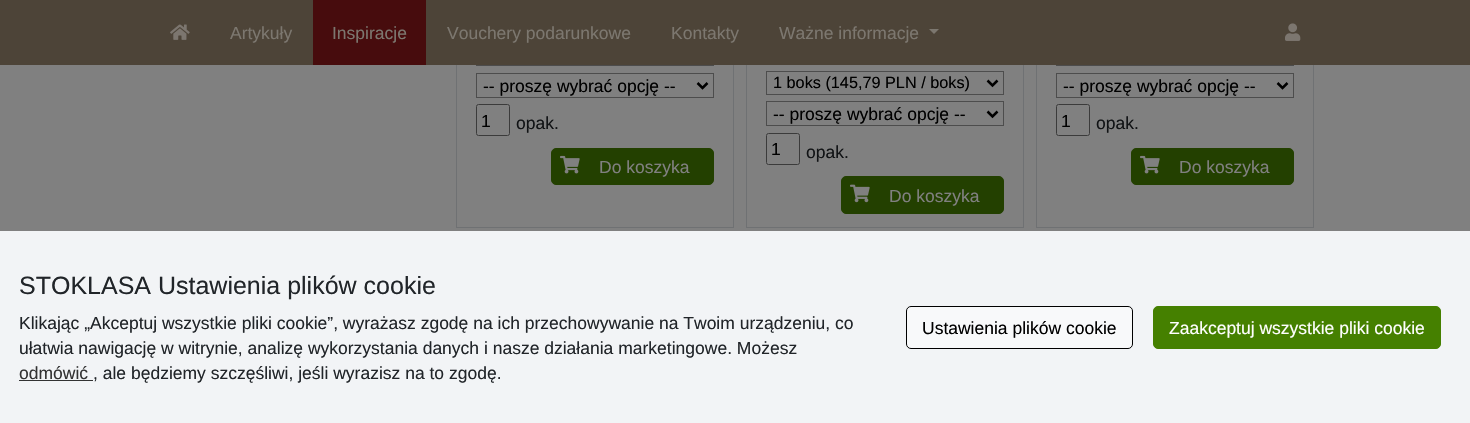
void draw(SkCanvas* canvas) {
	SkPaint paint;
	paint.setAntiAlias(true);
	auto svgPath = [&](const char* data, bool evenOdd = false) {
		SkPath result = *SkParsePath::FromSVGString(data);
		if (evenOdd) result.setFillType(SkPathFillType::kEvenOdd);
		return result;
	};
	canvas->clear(0xff808080);
	paint.setStroke(true);
	paint.setStrokeWidth(1);
	paint.setColor(0xff6f7173);
	canvas->drawRect(SkRect::MakeXYWH(456.5, -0.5, 277, 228), paint);
	paint.setColor(0xff4d4d4d);
	canvas->drawRect(SkRect::MakeXYWH(476.5, 43.5, 237, 22), paint);
	paint.setColor(0xff6f7173);
	canvas->drawRect(SkRect::MakeXYWH(746.5, -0.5, 277, 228), paint);
	canvas->drawRect(SkRect::MakeXYWH(1036.5, -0.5, 277, 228), paint);
	paint.setColor(0xff4d4d4d);
	canvas->drawRect(SkRect::MakeXYWH(1056.5, 43.5, 237, 22), paint);
	paint.setStroke(false);
	paint.setColor(0xff4d4438);
	canvas->drawRect(SkRect::MakeXYWH(0, 0, 1470, 65), paint);
	canvas->drawImageRect(SkImages::DeferredFromEncodedData(SkData::MakeFromFileName("img1.png")), SkRect::MakeXYWH(170, 24, 20, 16), SkSamplingOptions());
	SkFont f1(fontMgr->matchFamilyStyle("Liberation Sans", SkFontStyle::Normal()), 17.5);
	f1.setSubpixel(true);
	paint.setColor(0xff7c776f);
	canvas->drawString("Artykuły", 230, 39, f1, paint);
	paint.setColor(0xff470c0d);
	canvas->drawRect(SkRect::MakeXYWH(313, 0, 113, 65), paint);
	paint.setColor(0xff7c776f);
	canvas->drawString("Inspiracje", 332, 39, f1, paint);
	canvas->drawString("Vouchery podarunkowe", 447, 39, f1, paint);
	canvas->drawString("Kontakty", 671, 39, f1, paint);
	canvas->drawString("Ważne informacje", 779, 39, f1, paint);
	canvas->drawPath(svgPath("M929 29H939L934 34Z"), paint);
	canvas->drawImageRect(SkImages::DeferredFromEncodedData(SkData::MakeFromFileName("img2.png")), SkRect::MakeXYWH(1285, 23, 16, 18), SkSamplingOptions());
	paint.setStroke(true);
	paint.setColor(0xff4d4d4d);
	canvas->drawRect(SkRect::MakeXYWH(476.5, 73.5, 237, 24), paint);
	paint.setStrokeWidth(2.5);
	paint.setColor(0xff000000);
	canvas->drawPath(svgPath("M697.5 83L702.5 88L707.5 83"), paint);
	paint.setStroke(false);
	canvas->drawString("-- proszę wybrać opcję --", 483, 92, f1, paint);
	paint.setStroke(true);
	paint.setStrokeWidth(1);
	paint.setColor(0xff3b3b3b);
	canvas->drawRoundRect(SkRect::MakeXYWH(476.5, 104.5, 33, 31), 2, 2, paint);
	paint.setStroke(false);
	paint.setColor(0xff000000);
	canvas->drawString("1", 481, 127, f1, paint);
	paint.setColor(0xff111315);
	canvas->drawString("opak.", 516, 129, f1, paint);
	paint.setColor(0xff234000);
	canvas->drawRoundRect(SkRect::MakeXYWH(551.5, 148.5, 162, 36), 4.5, 4.5, paint);
	paint.setStroke(true);
	canvas->drawRoundRect(SkRect::MakeXYWH(551.5, 148.5, 162, 36), 4.5, 4.5, paint);
	canvas->drawImageRect(SkImages::DeferredFromEncodedData(SkData::MakeFromFileName("img3.png")), SkRect::MakeXYWH(560, 155, 20, 19), SkSamplingOptions());
	paint.setStroke(false);
	paint.setColor(0xff808080);
	canvas->drawString("Do koszyka", 599, 173, f1, paint);
	paint.setStroke(true);
	paint.setColor(0xff4d4d4d);
	canvas->drawRect(SkRect::MakeXYWH(766.5, 71.5, 237, 23), paint);
	paint.setStrokeWidth(2.5);
	paint.setColor(0xff000000);
	canvas->drawPath(svgPath("M987.5 80.5L992.5 85.5L997.5 80.5"), paint);
	SkFont f2(fontMgr->matchFamilyStyle("Liberation Sans", SkFontStyle::Normal()), 16.25);
	f2.setSubpixel(true);
	paint.setStroke(false);
	canvas->drawString("1 boks (145,79 PLN / boks)", 773, 88, f2, paint);
	paint.setStroke(true);
	paint.setStrokeWidth(1);
	paint.setColor(0xff4d4d4d);
	canvas->drawRect(SkRect::MakeXYWH(766.5, 101.5, 237, 24), paint);
	paint.setStrokeWidth(2.5);
	paint.setColor(0xff000000);
	canvas->drawPath(svgPath("M987.5 111.5L992.5 116.5L997.5 111.5"), paint);
	paint.setStroke(false);
	canvas->drawString("-- proszę wybrać opcję --", 773, 120, f1, paint);
	paint.setStroke(true);
	paint.setStrokeWidth(1);
	paint.setColor(0xff3b3b3b);
	canvas->drawRoundRect(SkRect::MakeXYWH(766.5, 133.5, 33, 31), 2, 2, paint);
	paint.setStroke(false);
	paint.setColor(0xff000000);
	canvas->drawString("1", 771, 155, f1, paint);
	paint.setColor(0xff111315);
	canvas->drawString("opak.", 806, 158, f1, paint);
	paint.setColor(0xff234000);
	canvas->drawRoundRect(SkRect::MakeXYWH(841.5, 176.5, 162, 37), 4.5, 4.5, paint);
	paint.setStroke(true);
	canvas->drawRoundRect(SkRect::MakeXYWH(841.5, 176.5, 162, 37), 4.5, 4.5, paint);
	canvas->drawImageRect(SkImages::DeferredFromEncodedData(SkData::MakeFromFileName("img4.png")), SkRect::MakeXYWH(850, 184, 20, 19), SkSamplingOptions());
	paint.setStroke(false);
	paint.setColor(0xff808080);
	canvas->drawString("Do koszyka", 889, 202, f1, paint);
	paint.setStroke(true);
	paint.setColor(0xff4d4d4d);
	canvas->drawRect(SkRect::MakeXYWH(1056.5, 73.5, 237, 24), paint);
	paint.setStrokeWidth(2.5);
	paint.setColor(0xff000000);
	canvas->drawPath(svgPath("M1277.5 83L1282.5 88L1287.5 83"), paint);
	paint.setStroke(false);
	canvas->drawString("-- proszę wybrać opcję --", 1063, 92, f1, paint);
	paint.setStroke(true);
	paint.setStrokeWidth(1);
	paint.setColor(0xff3b3b3b);
	canvas->drawRoundRect(SkRect::MakeXYWH(1056.5, 104.5, 33, 31), 2, 2, paint);
	paint.setStroke(false);
	paint.setColor(0xff000000);
	canvas->drawString("1", 1061, 127, f1, paint);
	paint.setColor(0xff111315);
	canvas->drawString("opak.", 1096, 129, f1, paint);
	paint.setColor(0xff234000);
	canvas->drawRoundRect(SkRect::MakeXYWH(1131.5, 148.5, 162, 36), 4.5, 4.5, paint);
	paint.setStroke(true);
	canvas->drawRoundRect(SkRect::MakeXYWH(1131.5, 148.5, 162, 36), 4.5, 4.5, paint);
	canvas->drawImageRect(SkImages::DeferredFromEncodedData(SkData::MakeFromFileName("img3.png")), SkRect::MakeXYWH(1140, 155, 20, 19), SkSamplingOptions());
	paint.setStroke(false);
	paint.setColor(0xff808080);
	canvas->drawString("Do koszyka", 1179, 173, f1, paint);
	paint.setColor(0xfff2f4f6);
	canvas->drawRect(SkRect::MakeXYWH(0, 231, 1470, 192), paint);
	SkFont f3(fontMgr->matchFamilyStyle("Liberation Sans", SkFontStyle::Normal()), 25);
	f3.setSubpixel(true);
	paint.setColor(0xff212529);
	canvas->drawString("STOKLASA Ustawienia plików cookie", 19, 294, f3, paint);
	canvas->drawString("Klikając „Akceptuj wszystkie pliki cookie”, wyrażasz zgodę na ich przechowywanie na Twoim urządzeniu, co", 19, 329, f1, paint);
	canvas->drawString("ułatwia nawigację w witrynie, analizę wykorzystania danych i nasze działania marketingowe. Możesz", 19, 354, f1, paint);
	paint.setColor(0xff333333);
	canvas->drawString("odmówić", 19, 379, f1, paint);
	canvas->drawRect(SkRect::MakeXYWH(19, 380, 74, 1), paint);
	paint.setColor(0xff212529);
	canvas->drawString(", ale będziemy szczęśliwi, jeśli wyrazisz na to zgodę.", 93, 379, f1, paint);
	paint.setColor(0xfff8f9fa);
	canvas->drawRoundRect(SkRect::MakeXYWH(906.5, 306.5, 226, 42), 4.5, 4.5, paint);
	paint.setStroke(true);
	paint.setColor(0xff000000);
	canvas->drawRoundRect(SkRect::MakeXYWH(906.5, 306.5, 226, 42), 4.5, 4.5, paint);
	paint.setStroke(false);
	canvas->drawString("Ustawienia plików cookie", 922, 334, f1, paint);
	paint.setColor(0xff458000);
	canvas->drawRoundRect(SkRect::MakeXYWH(1153.5, 306.5, 287, 42), 4.5, 4.5, paint);
	paint.setStroke(true);
	canvas->drawRoundRect(SkRect::MakeXYWH(1153.5, 306.5, 287, 42), 4.5, 4.5, paint);
	paint.setStroke(false);
	paint.setColor(0xffffffff);
	canvas->drawString("Zaakceptuj wszystkie pliki cookie", 1169, 334, f1, paint);
}
